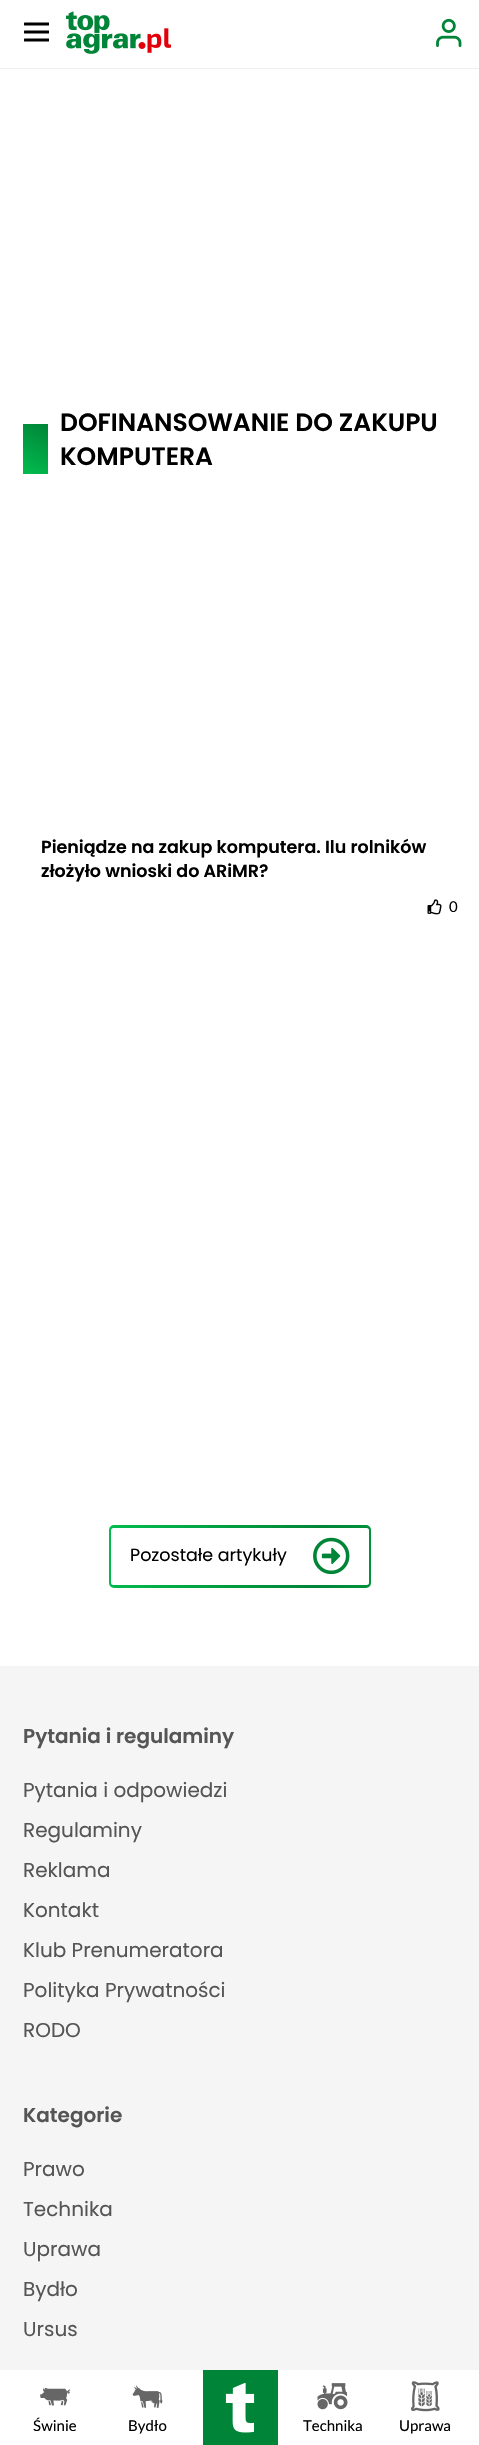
void draw(SkCanvas* canvas) {
	SkPaint paint;
	paint.setAntiAlias(true);
	auto svgPath = [&](const char* data, bool evenOdd = false) {
		SkPath result = *SkParsePath::FromSVGString(data);
		if (evenOdd) result.setFillType(SkPathFillType::kEvenOdd);
		return result;
	};
	canvas->clear(0xffffffff);
	paint.setColor(0xffeeeeee);
	canvas->drawRect(SkRect::MakeXYWH(0, 68, 479, 1), paint);
	canvas->save();
	canvas->clipRect(SkRect::MakeXYWH(24, 19, 25, 25));
	paint.setStroke(true);
	paint.setStrokeWidth(3);
	paint.setStrokeCap(SkPaint::kRound_Cap);
	paint.setColor(0xff000000);
	canvas->drawPath(svgPath("M25 24H49M25 32H49M25 40H49"), paint);
	canvas->restore();
	canvas->drawImageRect(SkImages::DeferredFromEncodedData(SkData::MakeFromFileName("img1.png")), SkRect::MakeXYWH(66, 11, 105, 43), SkSamplingOptions());
	canvas->drawImageRect(SkImages::DeferredFromEncodedData(SkData::MakeFromFileName("img2.png")), SkRect::MakeXYWH(436, 18, 26, 29), SkSamplingOptions());
	paint.setStroke(false);
	{
		const SkColor colors[] = {0xff02bd4f, 0xff008437};
		const float stops[] = {0, 1};
		const SkPoint ends[] = {{22, 474}, {48, 424}};
		paint.setShader(SkGradientShader::MakeLinear(ends, colors, stops, 2, SkTileMode::kClamp));
		paint.setAlpha(255);
	}
	canvas->drawRect(SkRect::MakeXYWH(23, 424, 25, 50), paint);
	SkFont f1(fontMgr->matchFamilyStyle("Poppins", SkFontStyle(600, SkFontStyle::kNormal_Width, SkFontStyle::kUpright_Slant)), 25);
	f1.setSubpixel(true);
	paint.setShader(nullptr);
	paint.setColor(0xff000000);
	canvas->drawString("DOFINANSOWANIE DO ZAKUPU", 60, 431, f1, paint);
	canvas->drawString("KOMPUTERA", 60, 465, f1, paint);
	SkFont f2(fontMgr->matchFamilyStyle("Poppins", SkFontStyle(600, SkFontStyle::kNormal_Width, SkFontStyle::kUpright_Slant)), 17.5);
	f2.setSubpixel(true);
	canvas->drawString("Pieniądze na zakup komputera. Ilu rolników", 41, 853, f2, paint);
	canvas->drawString("złożyło wnioski do ARiMR?", 41, 877, f2, paint);
	canvas->drawImageRect(SkImages::DeferredFromEncodedData(SkData::MakeFromFileName("img3.png")), SkRect::MakeXYWH(427, 899, 15, 16), SkSamplingOptions());
	SkFont f3(fontMgr->matchFamilyStyle("Lato", SkFontStyle::Normal()), 15);
	f3.setSubpixel(true);
	canvas->drawString("0", 449, 912, f3, paint);
	{
		const SkColor colors[] = {0xff02bd4f, 0xff008437, 0xff02bd4f};
		const float stops[] = {0, 0.4, 0.8};
		const SkPoint ends[] = {{110, 1515}, {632, 1598}};
		paint.setShader(SkGradientShader::MakeLinear(ends, colors, stops, 3, SkTileMode::kClamp));
		paint.setAlpha(255);
	}
	canvas->drawRoundRect(SkRect::MakeXYWH(109, 1525, 262, 63), 5, 5, paint);
	paint.setShader(nullptr);
	paint.setColor(0xffffffff);
	canvas->drawRoundRect(SkRect::MakeXYWH(111, 1528, 258, 57), 2.5, 2.5, paint);
	SkFont f4(fontMgr->matchFamilyStyle("Poppins", SkFontStyle::Normal()), 17.5);
	f4.setSubpixel(true);
	paint.setColor(0xff000000);
	canvas->drawString("Pozostałe artykuły", 130, 1561, f4, paint);
	canvas->drawImageRect(SkImages::DeferredFromEncodedData(SkData::MakeFromFileName("img4.png")), SkRect::MakeXYWH(313, 1537, 37, 38), SkSamplingOptions());
	paint.setColor(0xfff5f5f5);
	canvas->drawRect(SkRect::MakeXYWH(0, 1666, 479, 704), paint);
	SkFont f5(fontMgr->matchFamilyStyle("Poppins", SkFontStyle(600, SkFontStyle::kNormal_Width, SkFontStyle::kUpright_Slant)), 20);
	f5.setSubpixel(true);
	paint.setColor(0xff555555);
	canvas->drawString("Pytania i regulaminy", 23, 1743, f5, paint);
	SkFont f6(fontMgr->matchFamilyStyle("Poppins", SkFontStyle::Normal()), 20);
	f6.setSubpixel(true);
	canvas->drawString("Pytania i odpowiedzi", 23, 1797, f6, paint);
	canvas->drawString("Regulaminy", 23, 1837, f6, paint);
	canvas->drawString("Reklama", 23, 1877, f6, paint);
	canvas->drawString("Kontakt", 23, 1917, f6, paint);
	canvas->drawString("Klub Prenumeratora", 23, 1957, f6, paint);
	canvas->drawString("Polityka Prywatności", 23, 1997, f6, paint);
	canvas->drawString("RODO", 23, 2037, f6, paint);
	canvas->drawString("Kategorie", 23, 2122, f5, paint);
	canvas->drawString("Prawo", 23, 2176, f6, paint);
	canvas->drawString("Technika", 23, 2216, f6, paint);
	canvas->drawString("Uprawa", 23, 2256, f6, paint);
	canvas->drawString("Bydło", 23, 2296, f6, paint);
	canvas->drawString("Ursus", 23, 2336, f6, paint);
	canvas->drawImageRect(SkImages::DeferredFromEncodedData(SkData::MakeFromFileName("img5.png")), SkRect::MakeXYWH(40, 2387, 31, 19), SkSamplingOptions());
	paint.setColor(0xff000000);
	canvas->drawString("Świnie", 33, 2431, f3, paint);
	canvas->drawImageRect(SkImages::DeferredFromEncodedData(SkData::MakeFromFileName("img6.png")), SkRect::MakeXYWH(132, 2385, 31, 23), SkSamplingOptions());
	canvas->drawString("Bydło", 128, 2431, f3, paint);
	paint.setColor(0xff008437);
	canvas->drawRect(SkRect::MakeXYWH(203, 2370, 75, 75), paint);
	canvas->drawImageRect(SkImages::DeferredFromEncodedData(SkData::MakeFromFileName("img7.png")), SkRect::MakeXYWH(225, 2383, 30, 50), SkSamplingOptions());
	canvas->drawImageRect(SkImages::DeferredFromEncodedData(SkData::MakeFromFileName("img8.png")), SkRect::MakeXYWH(317, 2383, 31, 27), SkSamplingOptions());
	paint.setColor(0xff000000);
	canvas->drawString("Technika", 303, 2431, f3, paint);
	canvas->drawImageRect(SkImages::DeferredFromEncodedData(SkData::MakeFromFileName("img9.png")), SkRect::MakeXYWH(411, 2381, 29, 31), SkSamplingOptions());
	canvas->drawString("Uprawa", 399, 2431, f3, paint);
}
